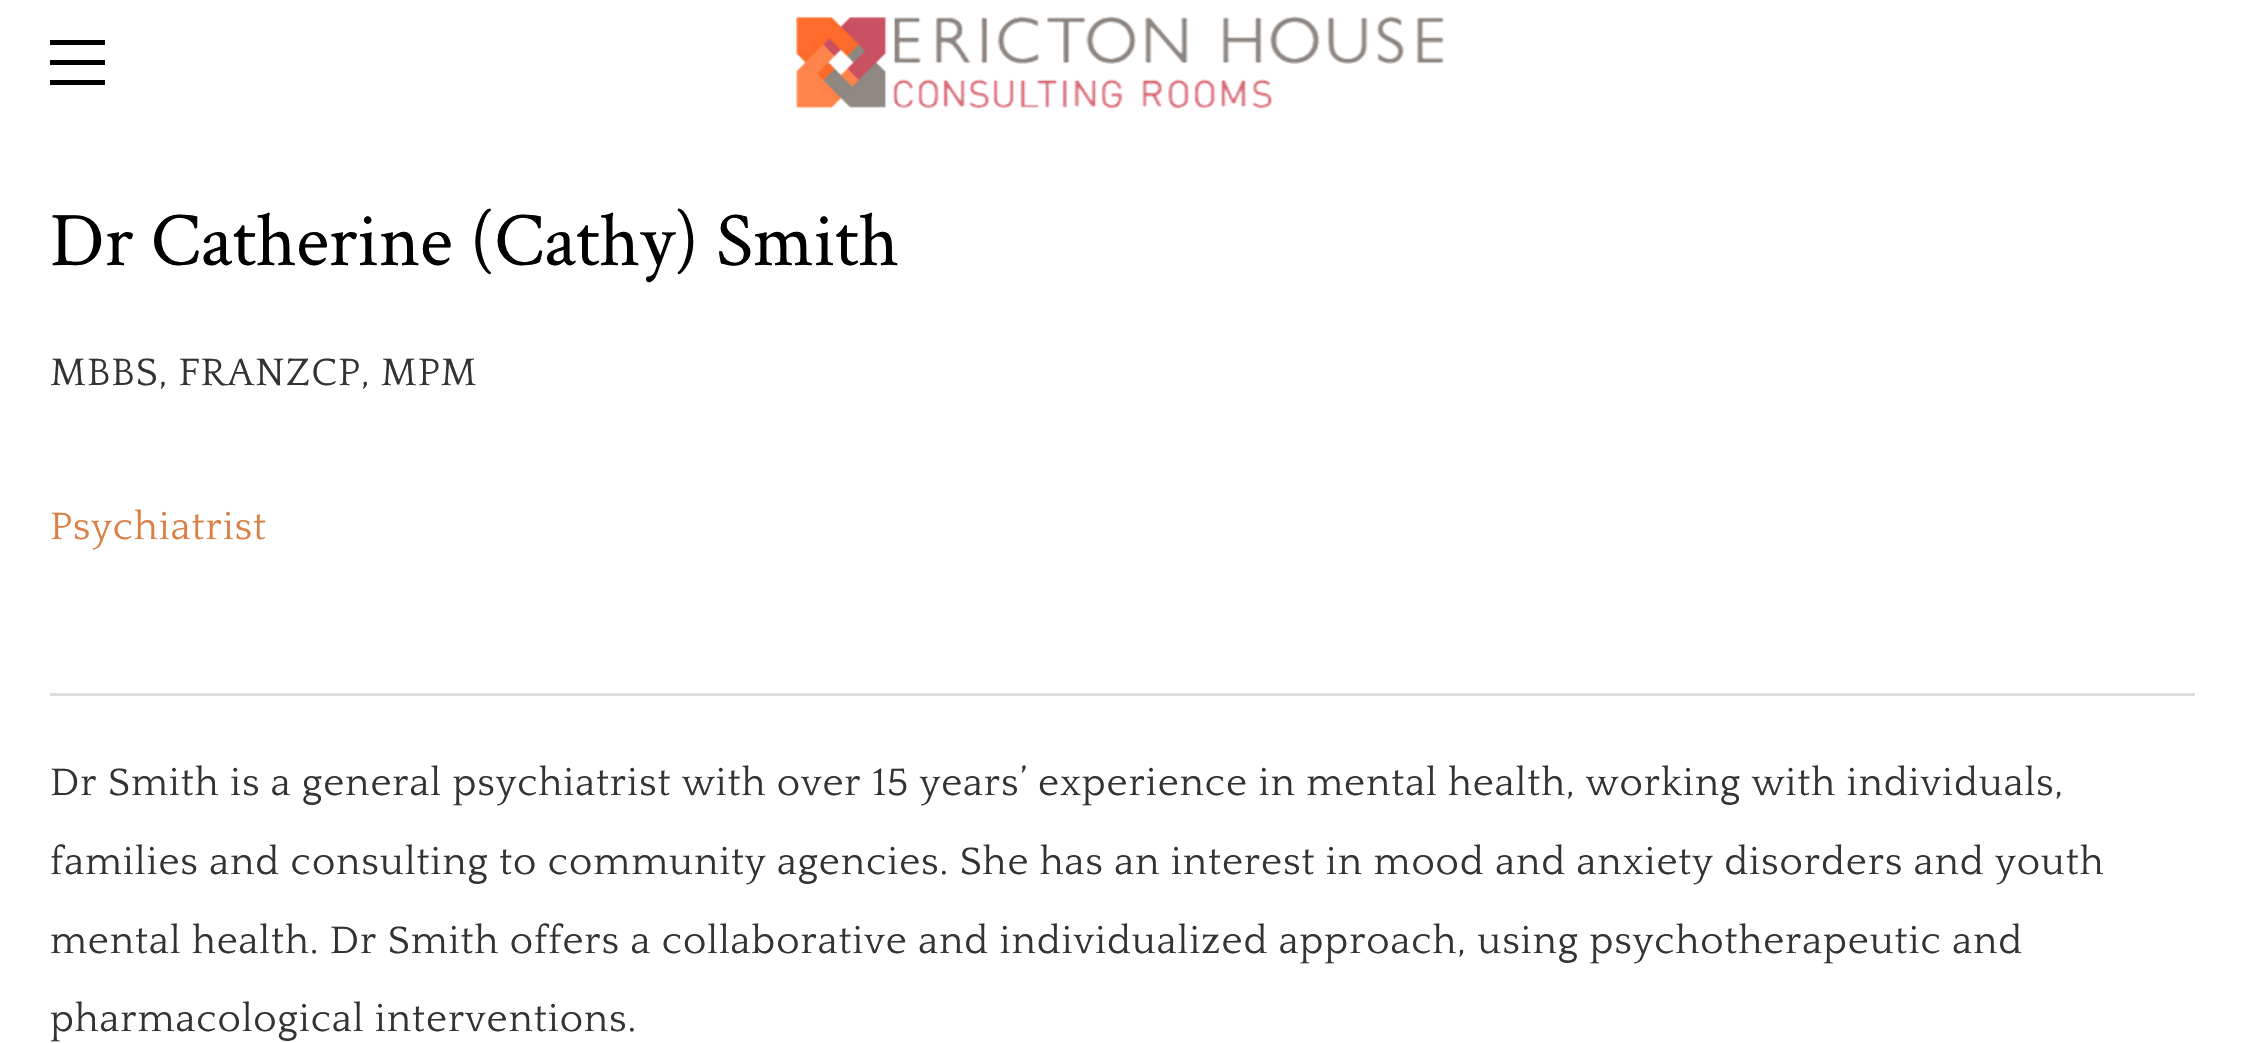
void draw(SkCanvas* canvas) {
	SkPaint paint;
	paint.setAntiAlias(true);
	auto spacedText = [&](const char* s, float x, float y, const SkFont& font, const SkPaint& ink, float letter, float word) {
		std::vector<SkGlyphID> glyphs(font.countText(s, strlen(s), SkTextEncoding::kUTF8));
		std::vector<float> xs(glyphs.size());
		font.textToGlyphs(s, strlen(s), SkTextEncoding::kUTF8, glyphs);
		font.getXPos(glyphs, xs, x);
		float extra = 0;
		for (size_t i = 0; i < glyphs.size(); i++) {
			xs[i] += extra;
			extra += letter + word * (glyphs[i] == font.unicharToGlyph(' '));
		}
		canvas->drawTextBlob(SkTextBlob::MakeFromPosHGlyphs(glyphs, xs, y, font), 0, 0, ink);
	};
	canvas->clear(0xffffffff);
	paint.setColor(0xff000000);
	canvas->drawRect(SkRect::MakeXYWH(50, 60, 55, 5), paint);
	canvas->drawRect(SkRect::MakeXYWH(50, 40, 55, 5), paint);
	canvas->drawRect(SkRect::MakeXYWH(50, 80, 55, 5), paint);
	canvas->drawImageRect(SkImages::DeferredFromEncodedData(SkData::MakeFromFileName("img1.png")), SkRect::MakeXYWH(796, 16, 648, 93), SkSamplingOptions());
	SkFont f1(fontMgr->matchFamilyStyle("Crimson Text", SkFontStyle::Normal()), 77.5);
	f1.setSubpixel(true);
	canvas->drawString("Dr Catherine (Cathy) Smith", 50, 265, f1, paint);
	SkFont f2(fontMgr->matchFamilyStyle("Quattrocento", SkFontStyle::Normal()), 40);
	f2.setSubpixel(true);
	paint.setColor(0xff333333);
	spacedText("MBBS, FRANZCP, MPM", 50, 385, f2, paint, 0.9, 0);
	paint.setColor(0xffda8044);
	spacedText("Psychiatrist", 50, 539, f2, paint, 0.9, 0);
	paint.setColor(0xffdedede);
	canvas->drawRect(SkRect::MakeXYWH(50, 693, 2145, 3), paint);
	paint.setColor(0xff333333);
	spacedText("Dr Smith is a general psychiatrist with over 15 years’ experience in mental health, working with individuals,", 50, 795, f2, paint, 0.9, 0);
	spacedText("families and consulting to community agencies. She has an interest in mood and anxiety disorders and youth", 50, 874, f2, paint, 0.9, 0);
	spacedText("mental health. Dr Smith offers a collaborative and individualized approach, using psychotherapeutic and", 50, 953, f2, paint, 0.9, 0);
	spacedText("pharmacological interventions.", 50, 1031, f2, paint, 0.9, 0);
}
